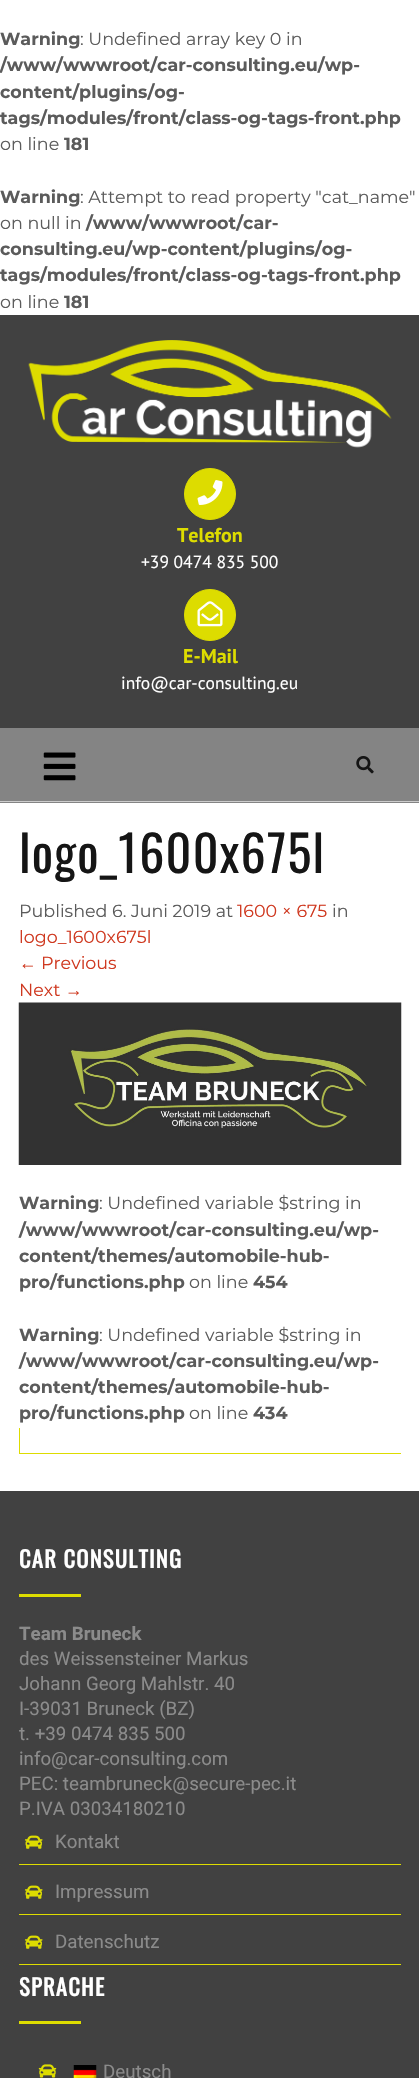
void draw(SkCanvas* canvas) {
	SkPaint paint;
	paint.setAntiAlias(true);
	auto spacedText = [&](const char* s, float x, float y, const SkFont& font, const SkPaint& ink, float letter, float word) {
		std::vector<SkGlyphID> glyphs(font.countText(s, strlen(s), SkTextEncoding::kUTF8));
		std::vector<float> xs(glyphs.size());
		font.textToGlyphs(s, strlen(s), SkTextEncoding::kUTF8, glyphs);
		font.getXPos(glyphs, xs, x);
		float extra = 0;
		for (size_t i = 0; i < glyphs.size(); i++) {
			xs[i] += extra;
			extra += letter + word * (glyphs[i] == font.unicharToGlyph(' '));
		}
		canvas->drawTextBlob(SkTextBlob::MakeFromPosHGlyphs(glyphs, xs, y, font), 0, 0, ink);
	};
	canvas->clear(0xffffffff);
	SkFont f1(fontMgr->matchFamilyStyle("Montserrat", SkFontStyle::Bold()), 17.5);
	f1.setSubpixel(true);
	paint.setColor(0xff5b5b5b);
	canvas->drawString("Warning", 0, 45, f1, paint);
	SkFont f2(fontMgr->matchFamilyStyle("Montserrat", SkFontStyle::Normal()), 17.5);
	f2.setSubpixel(true);
	canvas->drawString(": Undefined array key 0 in", 80, 45, f2, paint);
	canvas->drawString("/www/wwwroot/car-consulting.eu/wp-", 0, 71, f1, paint);
	canvas->drawString("content/plugins/og-", 0, 98, f1, paint);
	canvas->drawString("tags/modules/front/class-og-tags-front.php", 0, 124, f1, paint);
	canvas->drawString("on line", 0, 150, f2, paint);
	canvas->drawString("181", 64, 150, f1, paint);
	canvas->drawString("Warning", 0, 203, f1, paint);
	canvas->drawString(": Attempt to read property \"cat_name\"", 80, 203, f2, paint);
	canvas->drawString("on null in", 0, 229, f2, paint);
	canvas->drawString("/www/wwwroot/car-", 86, 229, f1, paint);
	canvas->drawString("consulting.eu/wp-content/plugins/og-", 0, 255, f1, paint);
	canvas->drawString("tags/modules/front/class-og-tags-front.php", 0, 281, f1, paint);
	canvas->drawString("on line", 0, 308, f2, paint);
	canvas->drawString("181", 64, 308, f1, paint);
	paint.setColor(0xff414141);
	canvas->drawRect(SkRect::MakeXYWH(0, 315, 419, 413), paint);
	canvas->drawImageRect(SkImages::DeferredFromEncodedData(SkData::MakeFromFileName("img1.png")), SkRect::MakeXYWH(28, 340, 364, 108), SkSamplingOptions());
	paint.setColor(0xffdddc00);
	canvas->drawCircle(210, 494, 25.5, paint);
	paint.setStroke(true);
	paint.setStrokeWidth(1);
	canvas->drawCircle(210, 494, 25.5, paint);
	canvas->drawImageRect(SkImages::DeferredFromEncodedData(SkData::MakeFromFileName("img2.png")), SkRect::MakeXYWH(197, 480, 26, 25), SkSamplingOptions());
	SkFont f3(fontMgr->matchFamilyStyle("PT Sans", SkFontStyle::Bold()), 20);
	f3.setSubpixel(true);
	paint.setStroke(false);
	canvas->drawString("Telefon", 177, 542, f3, paint);
	SkFont f4(fontMgr->matchFamilyStyle("PT Sans", SkFontStyle::Normal()), 17.5);
	f4.setSubpixel(true);
	paint.setColor(0xffffffff);
	canvas->drawString("+39 0474 835 500", 141, 568, f4, paint);
	paint.setColor(0xffdddc00);
	canvas->drawCircle(210, 615, 25.5, paint);
	paint.setStroke(true);
	canvas->drawCircle(210, 615, 25.5, paint);
	canvas->drawImageRect(SkImages::DeferredFromEncodedData(SkData::MakeFromFileName("img3.png")), SkRect::MakeXYWH(197, 601, 26, 26), SkSamplingOptions());
	paint.setStroke(false);
	canvas->drawString("E-Mail", 183, 663, f3, paint);
	paint.setColor(0xffffffff);
	canvas->drawString("info@car-consulting.eu", 121, 689, f4, paint);
	paint.setColor(0xff848484);
	canvas->drawRect(SkRect::MakeXYWH(0, 728, 419, 75), paint);
	paint.setColor(0xffcccccc);
	canvas->drawRect(SkRect::MakeXYWH(0, 801, 419, 1), paint);
	canvas->drawImageRect(SkImages::DeferredFromEncodedData(SkData::MakeFromFileName("img4.png")), SkRect::MakeXYWH(43, 752, 33, 29), SkSamplingOptions());
	canvas->drawImageRect(SkImages::DeferredFromEncodedData(SkData::MakeFromFileName("img5.png")), SkRect::MakeXYWH(356, 756, 18, 18), SkSamplingOptions());
	SkFont f5(fontMgr->matchFamilyStyle("Oswald", SkFontStyle::Normal()), 50);
	f5.setSubpixel(true);
	paint.setColor(0xff151515);
	spacedText("logo_1600x675l", 19, 873, f5, paint, 1.25, 0);
	paint.setColor(0xff5b5b5b);
	canvas->drawString("Published 6. Juni 2019 at", 19, 917, f2, paint);
	paint.setColor(0xffcf381f);
	canvas->drawString("1600 × 675", 237, 917, f2, paint);
	paint.setColor(0xff5b5b5b);
	canvas->drawString("in", 332, 917, f2, paint);
	paint.setColor(0xffcf381f);
	canvas->drawString("logo_1600x675l", 19, 943, f2, paint);
	SkFont f6(fontMgr->matchFamilyStyle("Liberation Serif", SkFontStyle::Normal()), 17.5);
	f6.setSubpixel(true);
	canvas->drawString("←", 19, 969, f6, paint);
	canvas->drawString("Previous", 41, 969, f2, paint);
	canvas->drawString("Next", 19, 996, f2, paint);
	canvas->drawString("→", 65, 996, f6, paint);
	canvas->drawImageRect(SkImages::DeferredFromEncodedData(SkData::MakeFromFileName("img6.png")), SkRect::MakeXYWH(18, 1002, 384, 163), SkSamplingOptions());
	paint.setColor(0xff5b5b5b);
	canvas->drawString("Warning", 19, 1209, f1, paint);
	canvas->drawString(": Undefined variable $string in", 99, 1209, f2, paint);
	canvas->drawString("/www/wwwroot/car-consulting.eu/wp-", 19, 1236, f1, paint);
	canvas->drawString("content/themes/automobile-hub-", 19, 1262, f1, paint);
	canvas->drawString("pro/functions.php", 19, 1288, f1, paint);
	canvas->drawString("on line", 189, 1288, f2, paint);
	canvas->drawString("454", 253, 1288, f1, paint);
	canvas->drawString("Warning", 19, 1341, f1, paint);
	canvas->drawString(": Undefined variable $string in", 99, 1341, f2, paint);
	canvas->drawString("/www/wwwroot/car-consulting.eu/wp-", 19, 1367, f1, paint);
	canvas->drawString("content/themes/automobile-hub-", 19, 1393, f1, paint);
	canvas->drawString("pro/functions.php", 19, 1419, f1, paint);
	canvas->drawString("on line", 189, 1419, f2, paint);
	canvas->drawString("434", 253, 1419, f1, paint);
	paint.setColor(0xffdddc00);
	canvas->drawRect(SkRect::MakeXYWH(19, 1453, 382, 1), paint);
	canvas->drawRect(SkRect::MakeXYWH(19, 1428, 1, 26), paint);
	paint.setColor(0xff414141);
	canvas->drawRect(SkRect::MakeXYWH(0, 1491, 419, 587), paint);
	SkFont f7(fontMgr->matchFamilyStyle("Oswald", SkFontStyle::Bold()), 22.5);
	f7.setSubpixel(true);
	paint.setColor(0xffffffff);
	spacedText("CAR CONSULTING", 19, 1568, f7, paint, 1.25, 0);
	paint.setColor(0xffdddc00);
	canvas->drawRect(SkRect::MakeXYWH(19, 1594, 62, 3), paint);
	SkFont f8(fontMgr->matchFamilyStyle("Roboto", SkFontStyle::Bold()), 18.75);
	f8.setSubpixel(true);
	paint.setColor(0xff8b8b8b);
	canvas->drawString("Team Bruneck", 19, 1640, f8, paint);
	SkFont f9(fontMgr->matchFamilyStyle("Roboto", SkFontStyle::Normal()), 18.75);
	f9.setSubpixel(true);
	canvas->drawString("des Weissensteiner Markus", 19, 1665, f9, paint);
	canvas->drawString("Johann Georg Mahlstr. 40", 19, 1690, f9, paint);
	canvas->drawString("I-39031 Bruneck (BZ)", 19, 1715, f9, paint);
	canvas->drawString("t. +39 0474 835 500", 19, 1740, f9, paint);
	canvas->drawString("info@car-consulting.com", 19, 1765, f9, paint);
	canvas->drawString("PEC: teambruneck@secure-pec.it", 19, 1790, f9, paint);
	canvas->drawString("P.IVA 03034180210", 19, 1815, f9, paint);
	paint.setColor(0xffdddc00);
	canvas->drawRect(SkRect::MakeXYWH(19, 1864, 382, 1), paint);
	canvas->drawImageRect(SkImages::DeferredFromEncodedData(SkData::MakeFromFileName("img7.png")), SkRect::MakeXYWH(25, 1835, 18, 14), SkSamplingOptions());
	paint.setColor(0xff8b8b8b);
	canvas->drawString("Kontakt", 55, 1848, f9, paint);
	paint.setColor(0xffdddc00);
	canvas->drawRect(SkRect::MakeXYWH(19, 1914, 382, 1), paint);
	canvas->drawImageRect(SkImages::DeferredFromEncodedData(SkData::MakeFromFileName("img7.png")), SkRect::MakeXYWH(25, 1885, 18, 14), SkSamplingOptions());
	paint.setColor(0xff8b8b8b);
	canvas->drawString("Impressum", 55, 1898, f9, paint);
	paint.setColor(0xffdddc00);
	canvas->drawRect(SkRect::MakeXYWH(19, 1964, 382, 1), paint);
	canvas->drawImageRect(SkImages::DeferredFromEncodedData(SkData::MakeFromFileName("img7.png")), SkRect::MakeXYWH(25, 1935, 18, 14), SkSamplingOptions());
	paint.setColor(0xff8b8b8b);
	canvas->drawString("Datenschutz", 55, 1948, f9, paint);
	paint.setColor(0xffffffff);
	spacedText("SPRACHE", 19, 1996, f7, paint, 1.25, 0);
	paint.setColor(0xffdddc00);
	canvas->drawRect(SkRect::MakeXYWH(19, 2021, 62, 3), paint);
	canvas->drawImageRect(SkImages::DeferredFromEncodedData(SkData::MakeFromFileName("img8.png")), SkRect::MakeXYWH(38, 2064, 19, 14), SkSamplingOptions());
	canvas->drawImageRect(SkImages::DeferredFromEncodedData(SkData::MakeFromFileName("img9.png")), SkRect::MakeXYWH(73, 2065, 24, 13), SkSamplingOptions());
	paint.setColor(0xff8b8b8b);
	canvas->drawString("Deutsch", 103, 2078, f9, paint);
}
